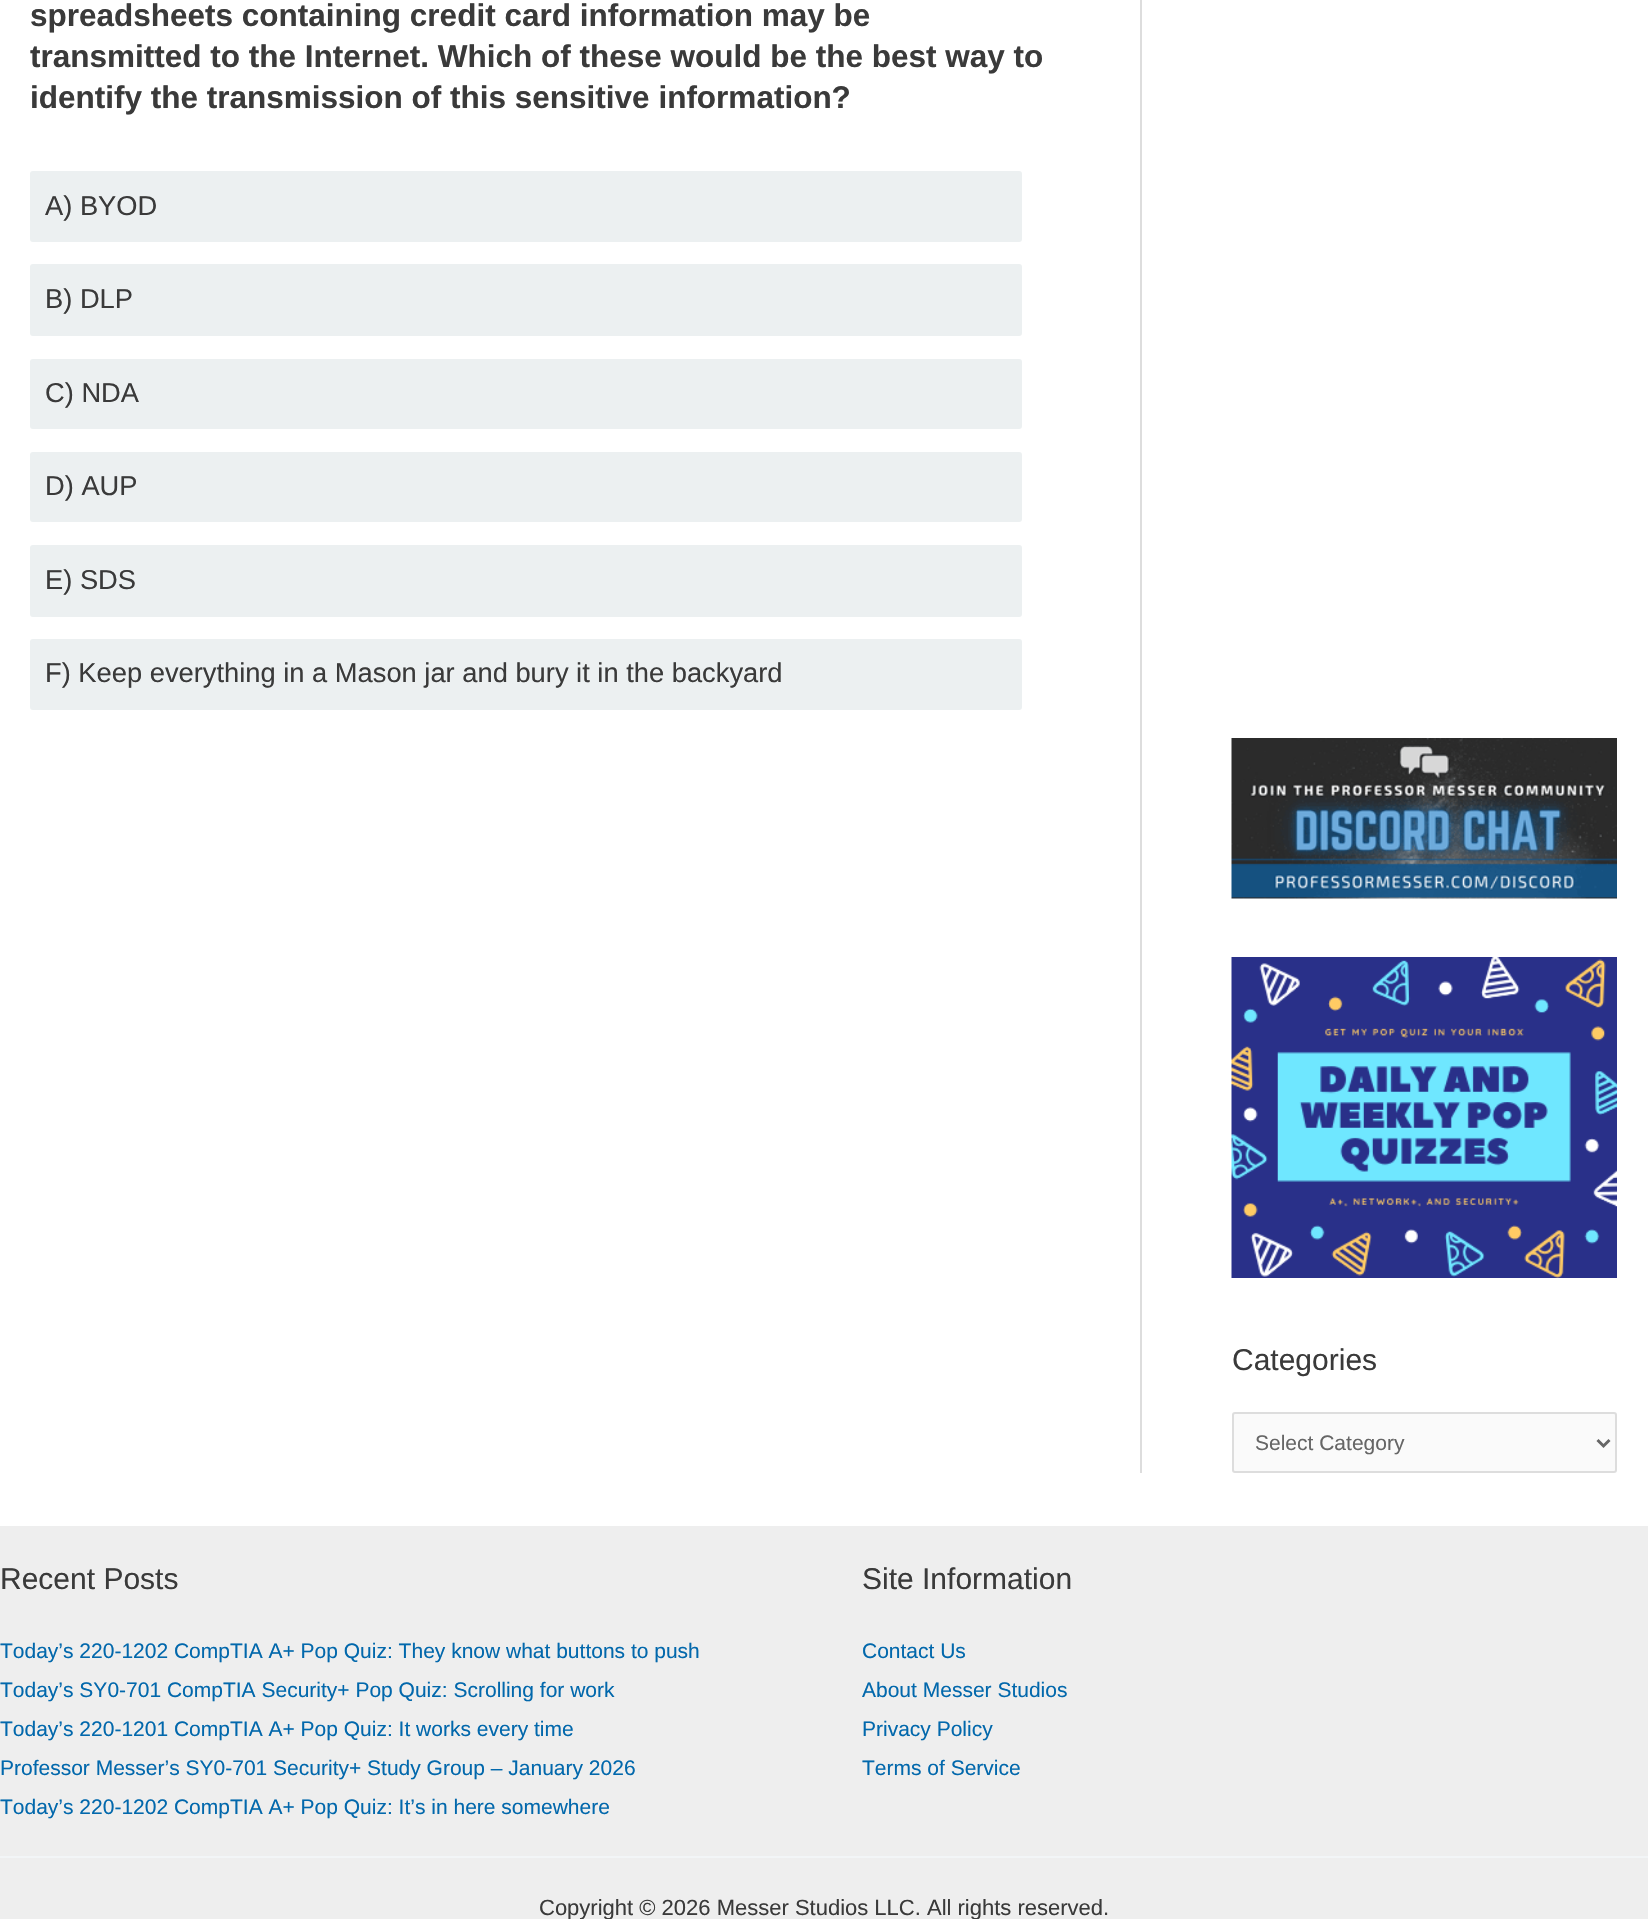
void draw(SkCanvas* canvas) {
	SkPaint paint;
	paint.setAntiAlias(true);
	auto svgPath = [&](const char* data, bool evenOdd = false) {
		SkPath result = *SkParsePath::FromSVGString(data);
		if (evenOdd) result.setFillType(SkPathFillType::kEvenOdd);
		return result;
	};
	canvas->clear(0xffffffff);
	SkFont f1(fontMgr->matchFamilyStyle("Liberation Sans", SkFontStyle::Bold()), 31.5);
	f1.setSubpixel(true);
	paint.setColor(0xff3a3a3a);
	canvas->drawString("spreadsheets containing credit card information may be", 30, 26, f1, paint);
	canvas->drawString("transmitted to the Internet. Which of these would be the best way to", 30, 67, f1, paint);
	canvas->drawString("identify the transmission of this sensitive information?", 30, 108, f1, paint);
	paint.setColor(0xffecf0f1);
	canvas->drawRoundRect(SkRect::MakeXYWH(32.5, 173.5, 987, 66), 0.5, 0.5, paint);
	paint.setStroke(true);
	paint.setStrokeWidth(5);
	canvas->drawRoundRect(SkRect::MakeXYWH(32.5, 173.5, 987, 66), 0.5, 0.5, paint);
	SkFont f2(fontMgr->matchFamilyStyle("Liberation Sans", SkFontStyle::Normal()), 27.3);
	f2.setSubpixel(true);
	paint.setStroke(false);
	paint.setColor(0xff3a3a3a);
	canvas->drawString("A) BYOD", 45, 215, f2, paint);
	paint.setColor(0xffecf0f1);
	canvas->drawRoundRect(SkRect::MakeXYWH(32.5, 266.5, 987, 67), 0.5, 0.5, paint);
	paint.setStroke(true);
	canvas->drawRoundRect(SkRect::MakeXYWH(32.5, 266.5, 987, 67), 0.5, 0.5, paint);
	paint.setStroke(false);
	paint.setColor(0xff3a3a3a);
	canvas->drawString("B) DLP", 45, 308, f2, paint);
	paint.setColor(0xffecf0f1);
	canvas->drawRoundRect(SkRect::MakeXYWH(32.5, 361.5, 987, 65), 0.5, 0.5, paint);
	paint.setStroke(true);
	canvas->drawRoundRect(SkRect::MakeXYWH(32.5, 361.5, 987, 65), 0.5, 0.5, paint);
	paint.setStroke(false);
	paint.setColor(0xff3a3a3a);
	canvas->drawString("C) NDA", 45, 402, f2, paint);
	paint.setColor(0xffecf0f1);
	canvas->drawRoundRect(SkRect::MakeXYWH(32.5, 454.5, 987, 65), 0.5, 0.5, paint);
	paint.setStroke(true);
	canvas->drawRoundRect(SkRect::MakeXYWH(32.5, 454.5, 987, 65), 0.5, 0.5, paint);
	paint.setStroke(false);
	paint.setColor(0xff3a3a3a);
	canvas->drawString("D) AUP", 45, 495, f2, paint);
	paint.setColor(0xffecf0f1);
	canvas->drawRoundRect(SkRect::MakeXYWH(32.5, 547.5, 987, 67), 0.5, 0.5, paint);
	paint.setStroke(true);
	canvas->drawRoundRect(SkRect::MakeXYWH(32.5, 547.5, 987, 67), 0.5, 0.5, paint);
	paint.setStroke(false);
	paint.setColor(0xff3a3a3a);
	canvas->drawString("E) SDS", 45, 589, f2, paint);
	paint.setColor(0xffecf0f1);
	canvas->drawRoundRect(SkRect::MakeXYWH(32.5, 641.5, 987, 66), 0.5, 0.5, paint);
	paint.setStroke(true);
	canvas->drawRoundRect(SkRect::MakeXYWH(32.5, 641.5, 987, 66), 0.5, 0.5, paint);
	paint.setStroke(false);
	paint.setColor(0xff3a3a3a);
	canvas->drawString("F) Keep everything in a Mason jar and bury it in the backyard", 45, 682, f2, paint);
	paint.setColor(0xffdddddd);
	canvas->drawRect(SkRect::MakeXYWH(1140, 0, 2, 1473), paint);
	canvas->drawImageRect(SkImages::DeferredFromEncodedData(SkData::MakeFromFileName("img1.png")), SkRect::MakeXYWH(1231, 738, 386, 161), SkSamplingOptions());
	canvas->drawImageRect(SkImages::DeferredFromEncodedData(SkData::MakeFromFileName("img2.png")), SkRect::MakeXYWH(1231, 957, 386, 321), SkSamplingOptions());
	SkFont f3(fontMgr->matchFamilyStyle("Liberation Sans", SkFontStyle::Normal()), 30);
	f3.setSubpixel(true);
	paint.setColor(0xff3a3a3a);
	canvas->drawString("Categories", 1232, 1370, f3, paint);
	paint.setColor(0xfffafafa);
	canvas->drawRoundRect(SkRect::MakeXYWH(1233, 1413, 383, 59), 2, 2, paint);
	paint.setStroke(true);
	paint.setStrokeWidth(2);
	paint.setColor(0xffdddddd);
	canvas->drawRoundRect(SkRect::MakeXYWH(1233, 1413, 383, 59), 2, 2, paint);
	paint.setStrokeWidth(3);
	paint.setColor(0xff666666);
	canvas->drawPath(svgPath("M1597.5 1440L1603.5 1446L1609.5 1440"), paint);
	SkFont f4(fontMgr->matchFamilyStyle("Liberation Sans", SkFontStyle::Normal()), 21);
	f4.setSubpixel(true);
	paint.setStroke(false);
	canvas->drawString("Select Category", 1255, 1450, f4, paint);
	paint.setColor(0xffeeeeee);
	canvas->drawRect(SkRect::MakeXYWH(0, 1526, 1648, 330), paint);
	paint.setColor(0xff3a3a3a);
	canvas->drawString("Recent Posts", 0, 1589, f3, paint);
	paint.setColor(0xff0268ac);
	canvas->drawString("Today’s 220-1202 CompTIA A+ Pop Quiz: They know what buttons to push", 0, 1658, f4, paint);
	canvas->drawString("Today’s SY0-701 CompTIA Security+ Pop Quiz: Scrolling for work", 0, 1697, f4, paint);
	canvas->drawString("Today’s 220-1201 CompTIA A+ Pop Quiz: It works every time", 0, 1736, f4, paint);
	canvas->drawString("Professor Messer’s SY0-701 Security+ Study Group – January 2026", 0, 1775, f4, paint);
	canvas->drawString("Today’s 220-1202 CompTIA A+ Pop Quiz: It’s in here somewhere", 0, 1814, f4, paint);
	paint.setColor(0xff3a3a3a);
	canvas->drawString("Site Information", 862, 1589, f3, paint);
	paint.setColor(0xff0268ac);
	canvas->drawString("Contact Us", 862, 1658, f4, paint);
	canvas->drawString("About Messer Studios", 862, 1697, f4, paint);
	canvas->drawString("Privacy Policy", 862, 1736, f4, paint);
	canvas->drawString("Terms of Service", 862, 1775, f4, paint);
	paint.setColor(0xffeeeeee);
	canvas->drawRect(SkRect::MakeXYWH(0, 1858, 1648, 61), paint);
	paint.setColor(0xfff2f5f7);
	canvas->drawRect(SkRect::MakeXYWH(0, 1856, 1648, 2), paint);
	SkFont f5(fontMgr->matchFamilyStyle("Liberation Sans", SkFontStyle::Normal()), 22);
	f5.setSubpixel(true);
	paint.setColor(0xff3a3a3a);
	canvas->drawString("Copyright © 2026 Messer Studios LLC. All rights reserved.", 539, 1915, f5, paint);
}
